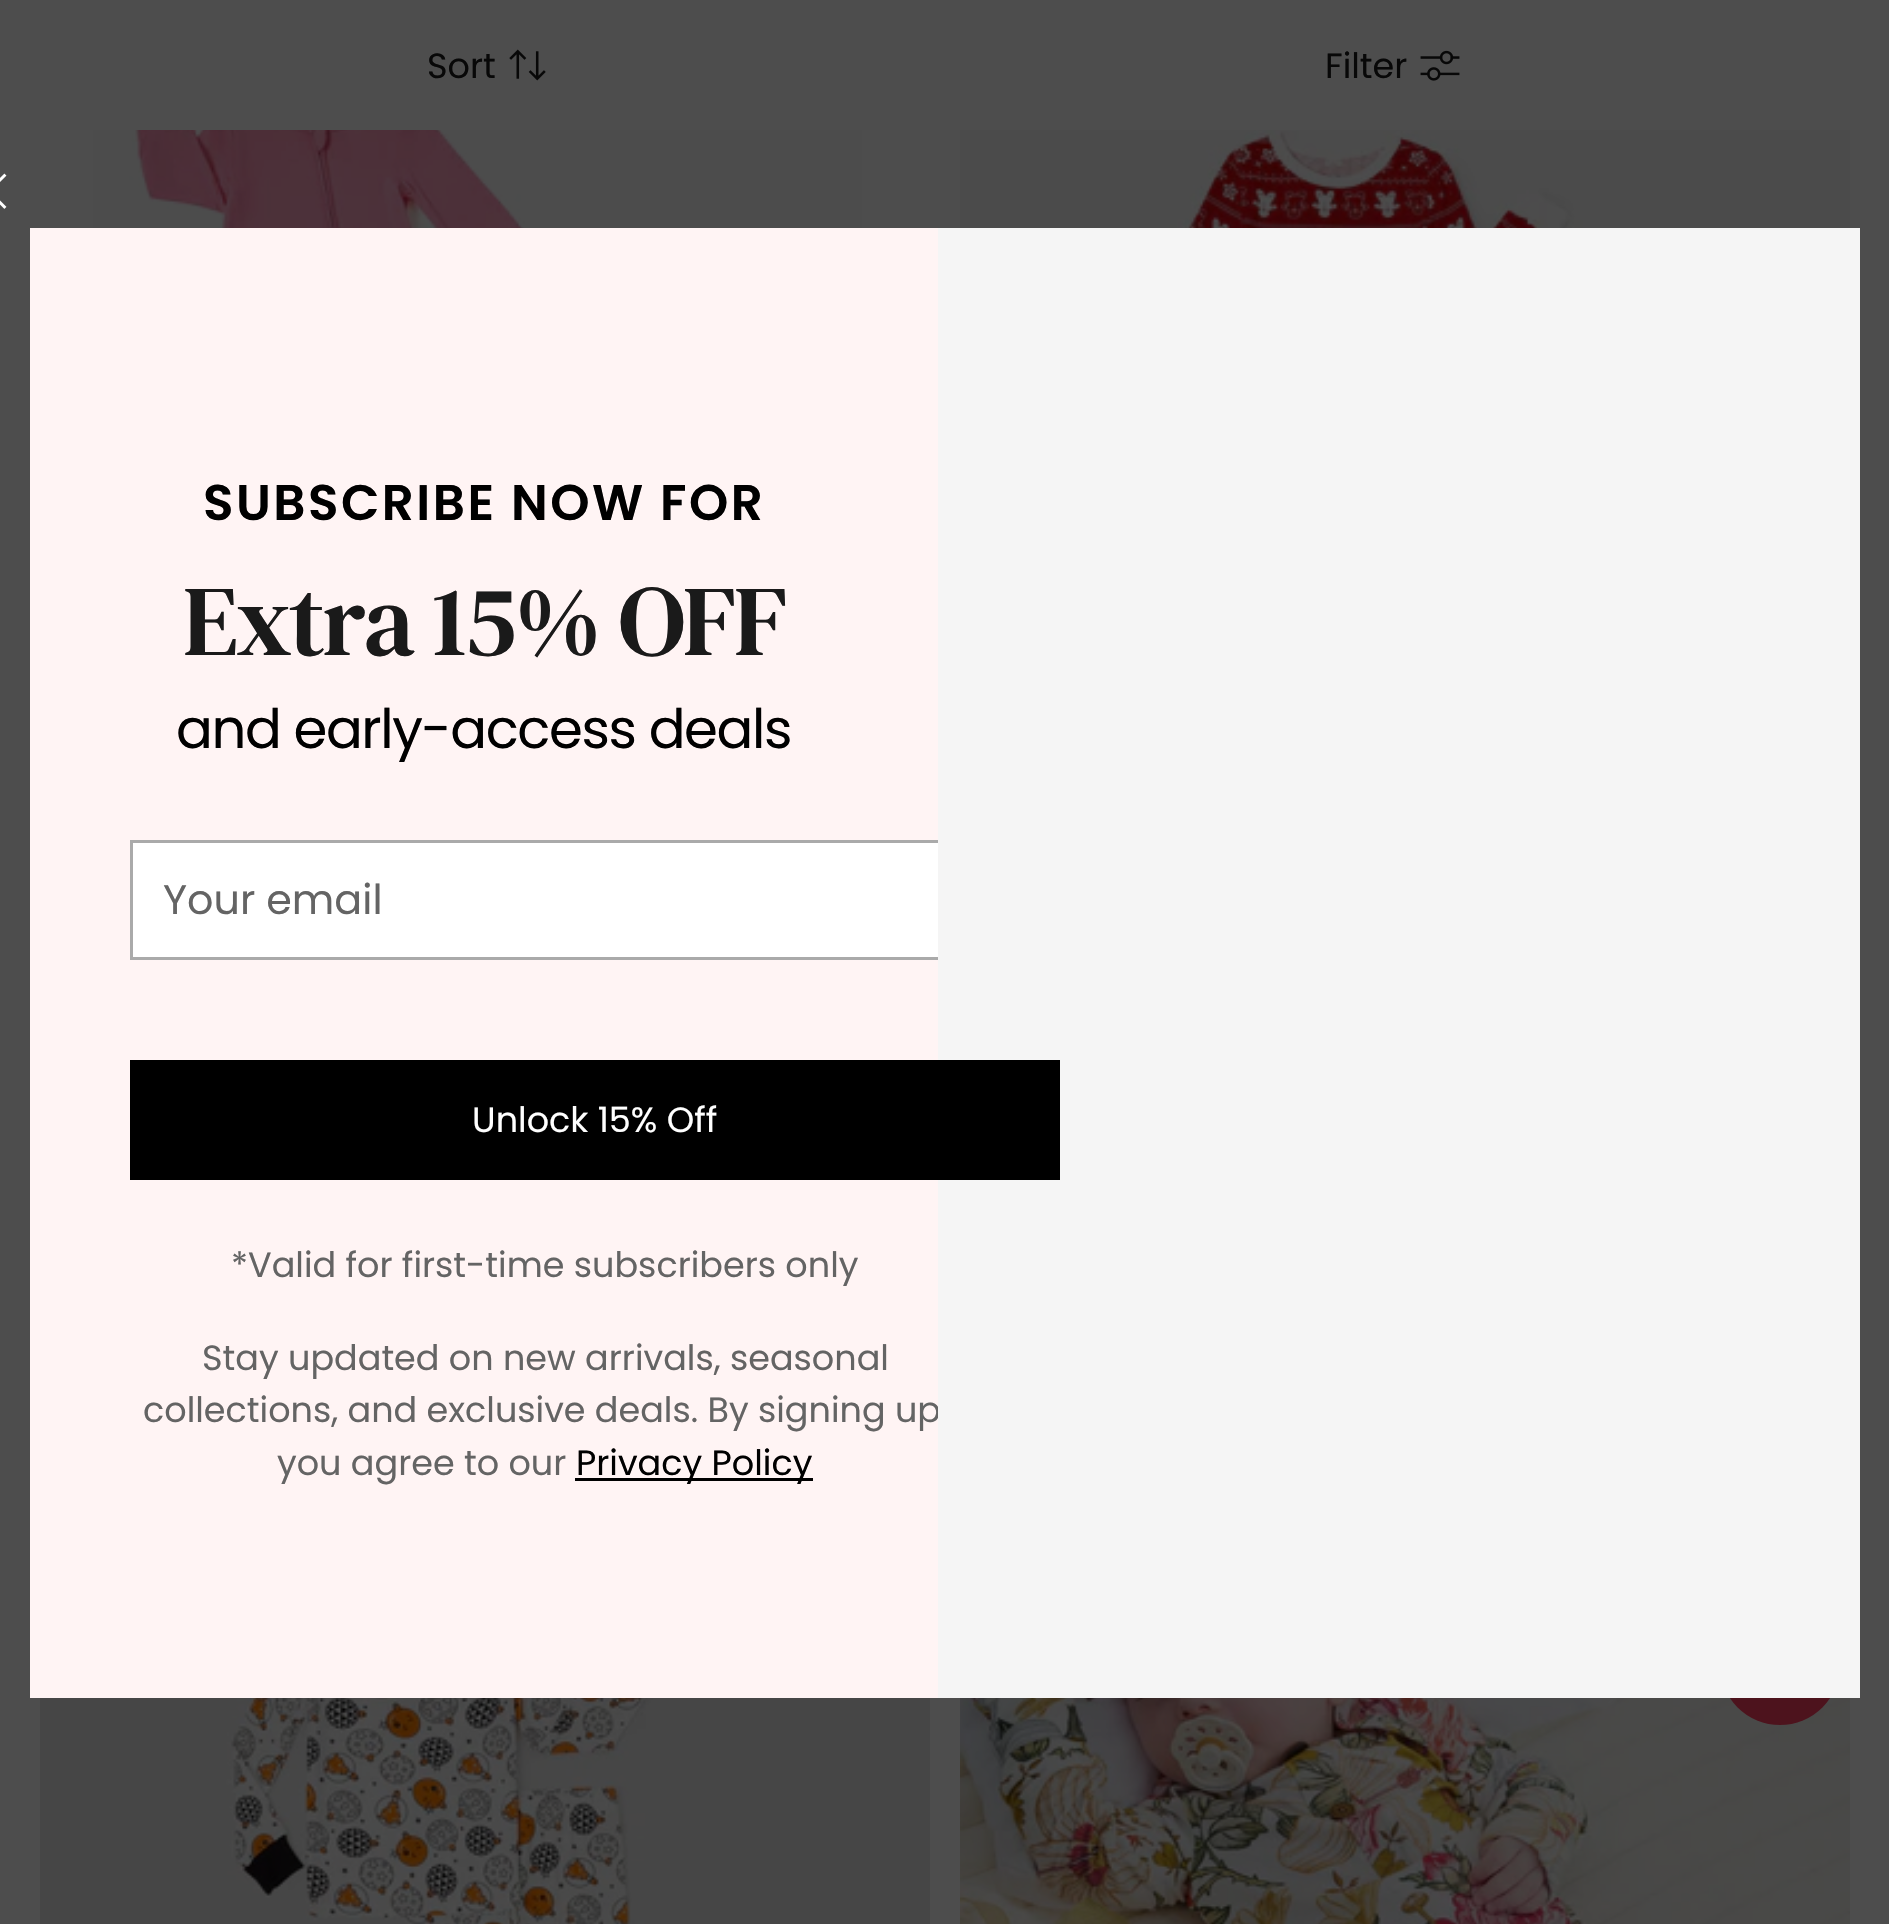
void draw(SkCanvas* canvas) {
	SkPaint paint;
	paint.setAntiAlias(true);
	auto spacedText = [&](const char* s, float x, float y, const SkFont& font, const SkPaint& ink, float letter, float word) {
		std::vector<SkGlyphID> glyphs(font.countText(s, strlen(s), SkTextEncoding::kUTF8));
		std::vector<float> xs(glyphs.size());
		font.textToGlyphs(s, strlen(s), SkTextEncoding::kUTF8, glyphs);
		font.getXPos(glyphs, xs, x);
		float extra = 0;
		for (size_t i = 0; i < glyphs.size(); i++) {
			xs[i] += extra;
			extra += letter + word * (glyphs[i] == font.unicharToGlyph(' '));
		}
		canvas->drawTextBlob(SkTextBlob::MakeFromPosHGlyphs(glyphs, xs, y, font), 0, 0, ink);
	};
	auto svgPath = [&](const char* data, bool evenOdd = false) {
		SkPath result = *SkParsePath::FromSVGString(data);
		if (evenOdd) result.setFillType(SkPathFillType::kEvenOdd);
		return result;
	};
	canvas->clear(0xff4d4d4d);
	SkFont f1(fontMgr->matchFamilyStyle("Poppins", SkFontStyle::Normal()), 35);
	f1.setSubpixel(true);
	paint.setColor(0xff080808);
	canvas->drawString("Sort", 427, 78, f1, paint);
	canvas->drawImageRect(SkImages::DeferredFromEncodedData(SkData::MakeFromFileName("img1.png")), SkRect::MakeXYWH(509, 49, 37, 32), SkSamplingOptions());
	canvas->drawString("Filter", 1325, 78, f1, paint);
	canvas->drawImageRect(SkImages::DeferredFromEncodedData(SkData::MakeFromFileName("img2.png")), SkRect::MakeXYWH(1420, 50, 40, 31), SkSamplingOptions());
	canvas->drawImageRect(SkImages::DeferredFromEncodedData(SkData::MakeFromFileName("img3.png")), SkRect::MakeXYWH(93, 130, 769, 98), SkSamplingOptions());
	canvas->drawImageRect(SkImages::DeferredFromEncodedData(SkData::MakeFromFileName("img4.png")), SkRect::MakeXYWH(960, 130, 890, 98), SkSamplingOptions());
	canvas->drawImageRect(SkImages::DeferredFromEncodedData(SkData::MakeFromFileName("img5.png")), SkRect::MakeXYWH(40, 1698, 890, 226), SkSamplingOptions());
	canvas->drawImageRect(SkImages::DeferredFromEncodedData(SkData::MakeFromFileName("img6.png")), SkRect::MakeXYWH(960, 1698, 890, 226), SkSamplingOptions());
	paint.setColor(0xfffff4f4);
	canvas->drawRect(SkRect::MakeXYWH(30, 228, 908, 1470), paint);
	canvas->drawImageRect(SkImages::DeferredFromEncodedData(SkData::MakeFromFileName("img7.png")), SkRect::MakeXYWH(0, 173, 7, 36), SkSamplingOptions());
	SkFont f2(fontMgr->matchFamilyStyle("Poppins", SkFontStyle(600, SkFontStyle::kNormal_Width, SkFontStyle::kUpright_Slant)), 50);
	f2.setSubpixel(true);
	paint.setColor(0xff000000);
	spacedText("SUBSCRIBE NOW FOR", 203, 520, f2, paint, 2.5, 0);
	SkFont f3(fontMgr->matchFamilyStyle("DM Serif Text", SkFontStyle::Normal()), 100);
	f3.setSubpixel(true);
	paint.setColor(0xff1a1a1a);
	spacedText("Extra 15% OFF", 183, 655, f3, paint, -2.5, 0);
	SkFont f4(fontMgr->matchFamilyStyle("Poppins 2", SkFontStyle::Normal()), 54.5);
	f4.setSubpixel(true);
	paint.setColor(0xff000000);
	spacedText("and early-access deals", 176, 748, f4, paint, -1.4, 0);
	paint.setColor(0xffffffff);
	canvas->drawRect(SkRect::MakeXYWH(133, 843, 805, 114), paint);
	paint.setStroke(true);
	paint.setStrokeWidth(3);
	paint.setColor(0xffaaaaaa);
	canvas->drawRect(SkRect::MakeXYWH(131.5, 841.5, 927, 117), paint);
	SkFont f5(fontMgr->matchFamilyStyle("Poppins", SkFontStyle::Normal()), 41.25);
	f5.setSubpixel(true);
	paint.setStroke(false);
	paint.setColor(0xff646464);
	canvas->drawString("Your email", 163, 914, f5, paint);
	SkFont f6(fontMgr->matchFamilyStyle("Poppins 2", SkFontStyle::Normal()), 35);
	f6.setSubpixel(true);
	canvas->drawString("collections, and exclusive deals. By signing up", 143, 1422, f6, paint);
	paint.setColor(0xff4d131d);
	canvas->drawCircle(1780, 1665, 60, paint);
	paint.setColor(0xfff5f5f5);
	canvas->drawRect(SkRect::MakeXYWH(938, 228, 922, 1470), paint);
	canvas->save();
	canvas->clipRect(SkRect::MakeXYWH(130, 1060, 930, 120));
	paint.setColor(0xff000000);
	canvas->drawPath(svgPath("M-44 1060H1165L1234 1180H25Z"), paint);
	canvas->restore();
	paint.setColor(0xffffffff);
	canvas->drawString("Unlock 15% Off", 472, 1132, f1, paint);
	paint.setColor(0xff646464);
	canvas->drawString("*Valid for first-time subscribers only", 231, 1277, f6, paint);
	canvas->drawString("Stay updated on new arrivals, seasonal", 202, 1370, f6, paint);
	canvas->drawString("you agree to our", 277, 1475, f6, paint);
	paint.setColor(0xff000000);
	canvas->drawRect(SkRect::MakeXYWH(575, 1478, 238, 3), paint);
	canvas->drawString("Privacy Policy", 576, 1475, f6, paint);
}
